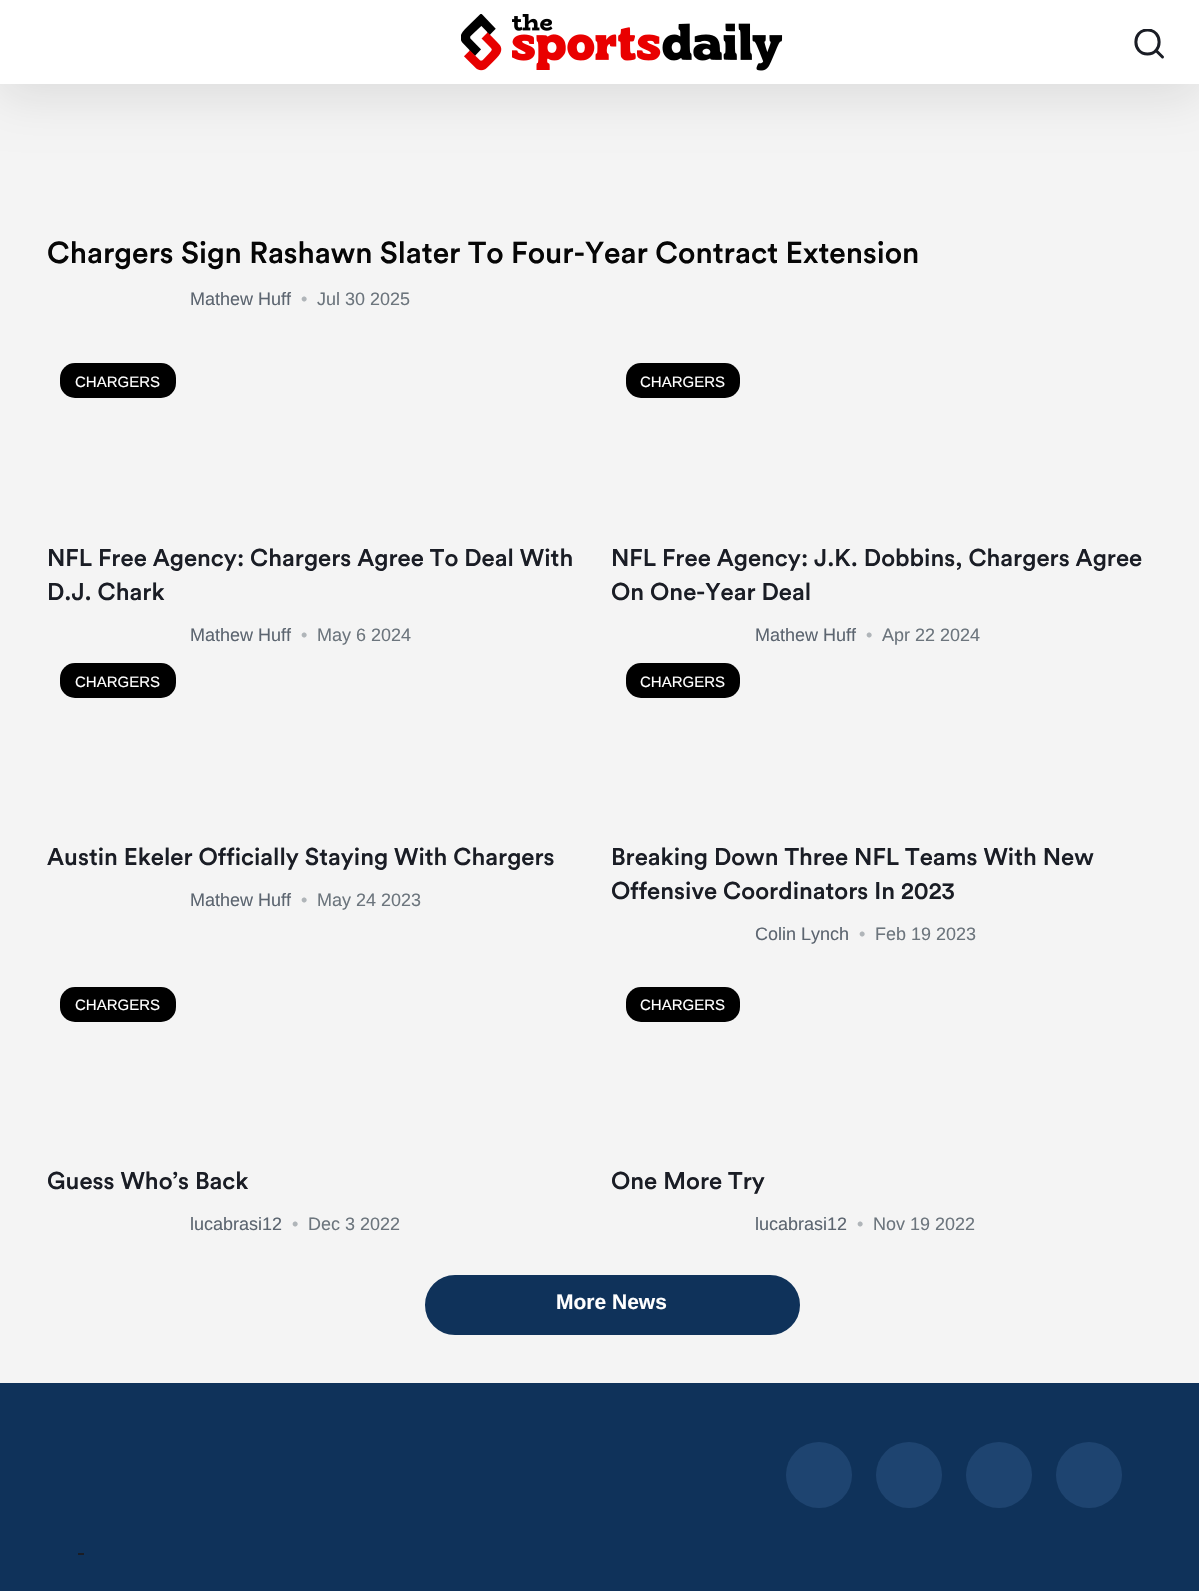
void draw(SkCanvas* canvas) {
	SkPaint paint;
	paint.setAntiAlias(true);
	auto svgPath = [&](const char* data, bool evenOdd = false) {
		SkPath result = *SkParsePath::FromSVGString(data);
		if (evenOdd) result.setFillType(SkPathFillType::kEvenOdd);
		return result;
	};
	canvas->clear(0xfff4f4f4);
	paint.setColor(0x1a000000);
	paint.setMaskFilter(SkMaskFilter::MakeBlur(kNormal_SkBlurStyle, 24));
	canvas->drawRect(SkRect::MakeXYWH(0, 12, 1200, 84), paint);
	paint.setMaskFilter(nullptr);
	paint.setColor(0xffffffff);
	canvas->drawRect(SkRect::MakeXYWH(0, 0, 1199, 84), paint);
	canvas->drawImageRect(SkImages::DeferredFromEncodedData(SkData::MakeFromFileName("img1.png")), SkRect::MakeXYWH(461, 14, 322, 57), SkSamplingOptions());
	canvas->save();
	canvas->clipRect(SkRect::MakeXYWH(1134, 29, 30, 30));
	paint.setStroke(true);
	paint.setStrokeWidth(3);
	paint.setStrokeCap(SkPaint::kRound_Cap);
	paint.setStrokeJoin(SkPaint::kRound_Join);
	paint.setColor(0xff1a1d25);
	canvas->drawPath(svgPath("M1147.5 54C1163 54 1163 30 1147.5 30C1132 30 1132 54 1147.5 54Z"), paint);
	canvas->restore();
	canvas->drawPath(svgPath("M1162.5 57L1156 50.5"), paint);
	SkFont f1(fontMgr->matchFamilyStyle("Circular", SkFontStyle(500, SkFontStyle::kNormal_Width, SkFontStyle::kUpright_Slant)), 30);
	f1.setSubpixel(true);
	paint.setStroke(false);
	paint.setColor(0xff060606);
	canvas->drawString("Chargers Sign Rashawn Slater To Four-Year Contract Extension", 47, 263, f1, paint);
	SkFont f2(fontMgr->matchFamilyStyle("Liberation Sans", SkFontStyle::Normal()), 18);
	f2.setSubpixel(true);
	paint.setColor(0xff5c6570);
	canvas->drawString("Mathew Huff", 190, 305, f2, paint);
	paint.setColor(0xffb0b5b9);
	canvas->drawString("•", 301, 305, f2, paint);
	paint.setColor(0xff6c757d);
	canvas->drawString("Jul 30 2025", 317, 305, f2, paint);
	paint.setColor(0xff000000);
	canvas->drawRoundRect(SkRect::MakeXYWH(60, 363, 116, 35), 15, 15, paint);
	SkFont f3(fontMgr->matchFamilyStyle("Liberation Sans", SkFontStyle::Normal()), 15);
	f3.setSubpixel(true);
	paint.setColor(0xffffffff);
	canvas->drawString("CHARGERS", 75, 387, f3, paint);
	SkFont f4(fontMgr->matchFamilyStyle("Circular", SkFontStyle(500, SkFontStyle::kNormal_Width, SkFontStyle::kUpright_Slant)), 24);
	f4.setSubpixel(true);
	paint.setColor(0xff1a1d25);
	canvas->drawString("NFL Free Agency: Chargers Agree To Deal With", 47, 566, f4, paint);
	canvas->drawString("D.J. Chark", 47, 600, f4, paint);
	paint.setColor(0xff5c6570);
	canvas->drawString("Mathew Huff", 190, 641, f2, paint);
	paint.setColor(0xffb0b5b9);
	canvas->drawString("•", 301, 641, f2, paint);
	paint.setColor(0xff6c757d);
	canvas->drawString("May 6 2024", 317, 641, f2, paint);
	paint.setColor(0xff000000);
	canvas->drawRoundRect(SkRect::MakeXYWH(626, 363, 114, 35), 15, 15, paint);
	paint.setColor(0xffffffff);
	canvas->drawString("CHARGERS", 640, 387, f3, paint);
	paint.setColor(0xff1a1d25);
	canvas->drawString("NFL Free Agency: J.K. Dobbins, Chargers Agree", 611, 566, f4, paint);
	canvas->drawString("On One-Year Deal", 611, 600, f4, paint);
	paint.setColor(0xff5c6570);
	canvas->drawString("Mathew Huff", 755, 641, f2, paint);
	paint.setColor(0xffb0b5b9);
	canvas->drawString("•", 866, 641, f2, paint);
	paint.setColor(0xff6c757d);
	canvas->drawString("Apr 22 2024", 882, 641, f2, paint);
	paint.setColor(0xff000000);
	canvas->drawRoundRect(SkRect::MakeXYWH(60, 663, 116, 35), 15, 15, paint);
	paint.setColor(0xffffffff);
	canvas->drawString("CHARGERS", 75, 687, f3, paint);
	paint.setColor(0xff1a1d25);
	canvas->drawString("Austin Ekeler Officially Staying With Chargers", 47, 865, f4, paint);
	paint.setColor(0xff5c6570);
	canvas->drawString("Mathew Huff", 190, 906, f2, paint);
	paint.setColor(0xffb0b5b9);
	canvas->drawString("•", 301, 906, f2, paint);
	paint.setColor(0xff6c757d);
	canvas->drawString("May 24 2023", 317, 906, f2, paint);
	paint.setColor(0xff000000);
	canvas->drawRoundRect(SkRect::MakeXYWH(626, 663, 114, 35), 15, 15, paint);
	paint.setColor(0xffffffff);
	canvas->drawString("CHARGERS", 640, 687, f3, paint);
	paint.setColor(0xff1a1d25);
	canvas->drawString("Breaking Down Three NFL Teams With New", 611, 865, f4, paint);
	canvas->drawString("Offensive Coordinators In 2023", 611, 899, f4, paint);
	paint.setColor(0xff5c6570);
	canvas->drawString("Colin Lynch", 755, 940, f2, paint);
	paint.setColor(0xffb0b5b9);
	canvas->drawString("•", 859, 940, f2, paint);
	paint.setColor(0xff6c757d);
	canvas->drawString("Feb 19 2023", 875, 940, f2, paint);
	paint.setColor(0xff000000);
	canvas->drawRoundRect(SkRect::MakeXYWH(60, 987, 116, 35), 15, 15, paint);
	paint.setColor(0xffffffff);
	canvas->drawString("CHARGERS", 75, 1010, f3, paint);
	paint.setColor(0xff1a1d25);
	canvas->drawString("Guess Who’s Back", 47, 1189, f4, paint);
	paint.setColor(0xff5c6570);
	canvas->drawString("lucabrasi12", 190, 1230, f2, paint);
	paint.setColor(0xffb0b5b9);
	canvas->drawString("•", 292, 1230, f2, paint);
	paint.setColor(0xff6c757d);
	canvas->drawString("Dec 3 2022", 308, 1230, f2, paint);
	paint.setColor(0xff000000);
	canvas->drawRoundRect(SkRect::MakeXYWH(626, 987, 114, 35), 15, 15, paint);
	paint.setColor(0xffffffff);
	canvas->drawString("CHARGERS", 640, 1010, f3, paint);
	paint.setColor(0xff1a1d25);
	canvas->drawString("One More Try", 611, 1189, f4, paint);
	paint.setColor(0xff5c6570);
	canvas->drawString("lucabrasi12", 755, 1230, f2, paint);
	paint.setColor(0xffb0b5b9);
	canvas->drawString("•", 857, 1230, f2, paint);
	paint.setColor(0xff6c757d);
	canvas->drawString("Nov 19 2022", 873, 1230, f2, paint);
	paint.setColor(0xff0f325a);
	canvas->drawRoundRect(SkRect::MakeXYWH(426, 1276, 373, 58), 29, 29, paint);
	paint.setStroke(true);
	paint.setStrokeWidth(2);
	paint.setStrokeCap(SkPaint::kButt_Cap);
	paint.setStrokeJoin(SkPaint::kMiter_Join);
	canvas->drawRoundRect(SkRect::MakeXYWH(426, 1276, 373, 58), 29, 29, paint);
	SkFont f5(fontMgr->matchFamilyStyle("Liberation Sans", SkFontStyle::Bold()), 21);
	f5.setSubpixel(true);
	paint.setStroke(false);
	paint.setColor(0xffffffff);
	canvas->drawString("More News", 556, 1309, f5, paint);
	paint.setColor(0xff0f325a);
	canvas->drawRect(SkRect::MakeXYWH(0, 1383, 1199, 208), paint);
	paint.setColor(0xff1e4470);
	canvas->drawCircle(819, 1475, 33, paint);
	canvas->drawCircle(909, 1475, 33, paint);
	canvas->drawCircle(999, 1475, 33, paint);
	canvas->drawCircle(1089, 1475, 33, paint);
	paint.setColor(0xff1a1d25);
	canvas->drawRect(SkRect::MakeXYWH(78, 1553, 6, 2), paint);
}
